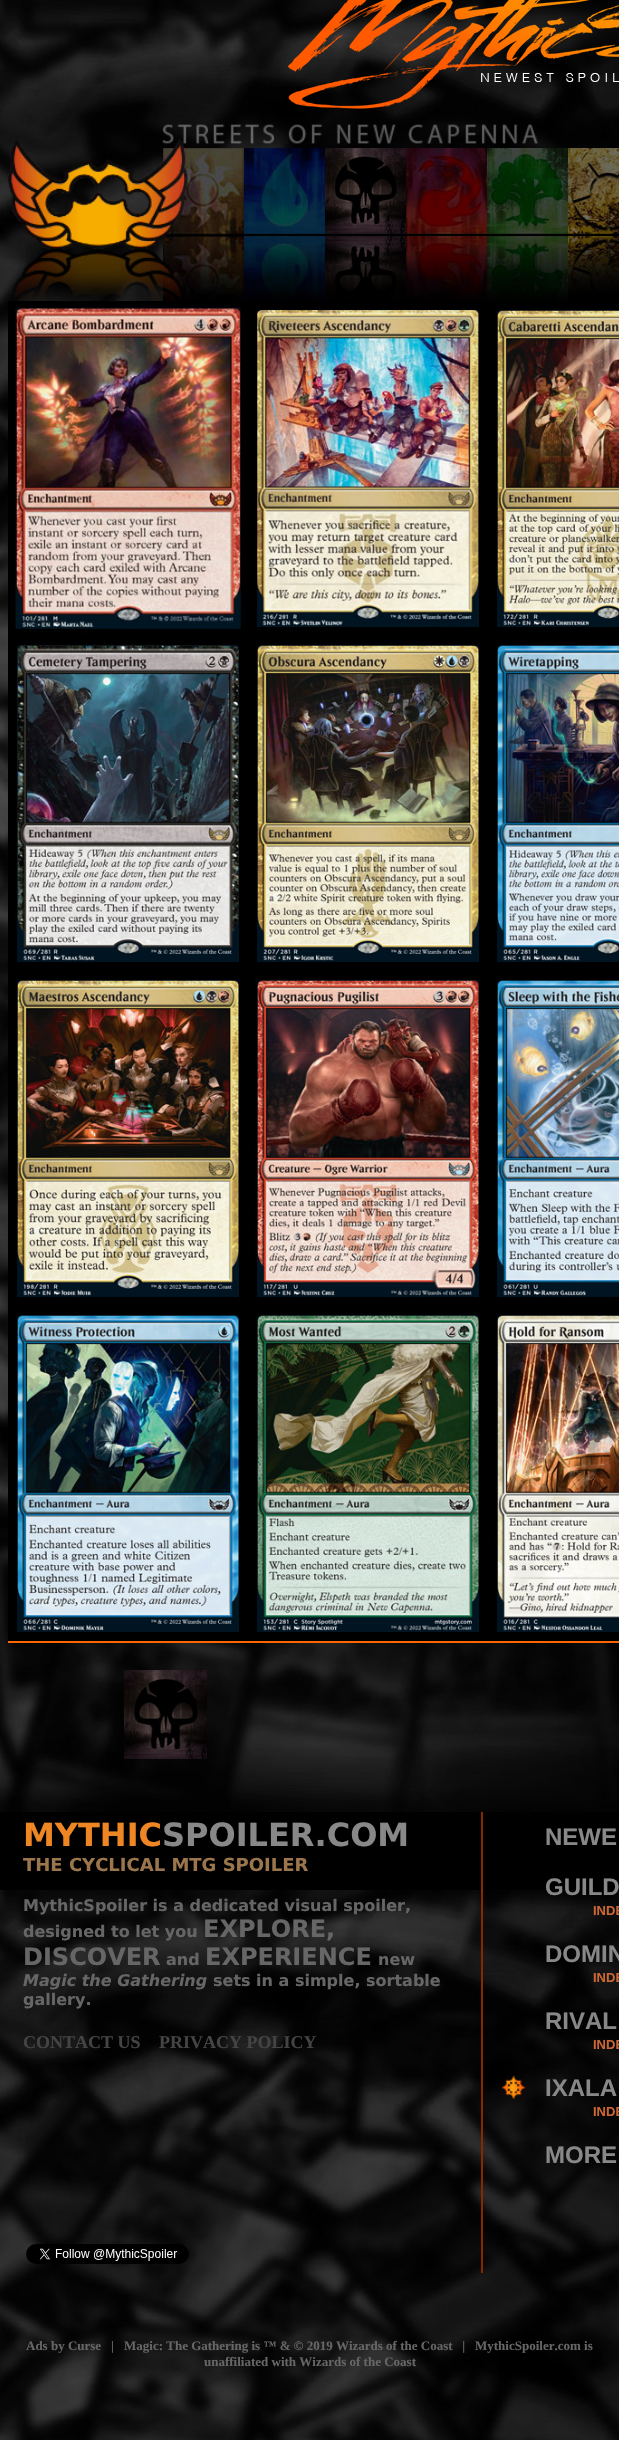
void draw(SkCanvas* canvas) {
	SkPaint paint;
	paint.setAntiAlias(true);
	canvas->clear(0xffffffff);
	canvas->drawImageRect(SkImages::DeferredFromEncodedData(SkData::MakeFromFileName("img1.png")), SkRect::MakeXYWH(0, 0, 619, 2440), SkSamplingOptions());
	canvas->drawImageRect(SkImages::DeferredFromEncodedData(SkData::MakeFromFileName("img2.png")), SkRect::MakeXYWH(290, 0, 329, 64), SkSamplingOptions());
	canvas->drawImageRect(SkImages::DeferredFromEncodedData(SkData::MakeFromFileName("img3.png")), SkRect::MakeXYWH(288, 64, 331, 45), SkSamplingOptions());
	canvas->drawImageRect(SkImages::DeferredFromEncodedData(SkData::MakeFromFileName("img4.png")), SkRect::MakeXYWH(12, 124, 526, 24), SkSamplingOptions());
	canvas->drawImageRect(SkImages::DeferredFromEncodedData(SkData::MakeFromFileName("img5.png")), SkRect::MakeXYWH(8, 148, 155, 153), SkSamplingOptions());
	canvas->drawImageRect(SkImages::DeferredFromEncodedData(SkData::MakeFromFileName("img6.png")), SkRect::MakeXYWH(163, 148, 81, 153), SkSamplingOptions());
	canvas->drawImageRect(SkImages::DeferredFromEncodedData(SkData::MakeFromFileName("img7.png")), SkRect::MakeXYWH(244, 148, 81, 153), SkSamplingOptions());
	canvas->drawImageRect(SkImages::DeferredFromEncodedData(SkData::MakeFromFileName("img8.png")), SkRect::MakeXYWH(325, 148, 81, 153), SkSamplingOptions());
	canvas->drawImageRect(SkImages::DeferredFromEncodedData(SkData::MakeFromFileName("img9.png")), SkRect::MakeXYWH(406, 148, 81, 153), SkSamplingOptions());
	canvas->drawImageRect(SkImages::DeferredFromEncodedData(SkData::MakeFromFileName("img10.png")), SkRect::MakeXYWH(487, 148, 81, 153), SkSamplingOptions());
	canvas->drawImageRect(SkImages::DeferredFromEncodedData(SkData::MakeFromFileName("img11.png")), SkRect::MakeXYWH(568, 148, 51, 153), SkSamplingOptions());
	canvas->drawImageRect(SkImages::DeferredFromEncodedData(SkData::MakeFromFileName("img12.png")), SkRect::MakeXYWH(8, 301, 240, 335), SkSamplingOptions());
	canvas->drawImageRect(SkImages::DeferredFromEncodedData(SkData::MakeFromFileName("img13.png")), SkRect::MakeXYWH(248, 301, 240, 335), SkSamplingOptions());
	canvas->drawImageRect(SkImages::DeferredFromEncodedData(SkData::MakeFromFileName("img14.png")), SkRect::MakeXYWH(488, 301, 131, 335), SkSamplingOptions());
	canvas->drawImageRect(SkImages::DeferredFromEncodedData(SkData::MakeFromFileName("img15.png")), SkRect::MakeXYWH(8, 636, 240, 335), SkSamplingOptions());
	canvas->drawImageRect(SkImages::DeferredFromEncodedData(SkData::MakeFromFileName("img16.png")), SkRect::MakeXYWH(248, 636, 240, 335), SkSamplingOptions());
	canvas->drawImageRect(SkImages::DeferredFromEncodedData(SkData::MakeFromFileName("img17.png")), SkRect::MakeXYWH(488, 636, 131, 335), SkSamplingOptions());
	canvas->drawImageRect(SkImages::DeferredFromEncodedData(SkData::MakeFromFileName("img18.png")), SkRect::MakeXYWH(8, 971, 240, 335), SkSamplingOptions());
	canvas->drawImageRect(SkImages::DeferredFromEncodedData(SkData::MakeFromFileName("img19.png")), SkRect::MakeXYWH(248, 971, 240, 335), SkSamplingOptions());
	canvas->drawImageRect(SkImages::DeferredFromEncodedData(SkData::MakeFromFileName("img20.png")), SkRect::MakeXYWH(488, 971, 131, 335), SkSamplingOptions());
	canvas->drawImageRect(SkImages::DeferredFromEncodedData(SkData::MakeFromFileName("img21.png")), SkRect::MakeXYWH(8, 1306, 240, 335), SkSamplingOptions());
	canvas->drawImageRect(SkImages::DeferredFromEncodedData(SkData::MakeFromFileName("img22.png")), SkRect::MakeXYWH(248, 1306, 240, 335), SkSamplingOptions());
	canvas->drawImageRect(SkImages::DeferredFromEncodedData(SkData::MakeFromFileName("img23.png")), SkRect::MakeXYWH(488, 1306, 131, 335), SkSamplingOptions());
	paint.setColor(0xffff6600);
	canvas->drawRect(SkRect::MakeXYWH(8, 1641, 611, 2), paint);
	canvas->drawImageRect(SkImages::DeferredFromEncodedData(SkData::MakeFromFileName("img24.png")), SkRect::MakeXYWH(124, 1670, 83, 89), SkSamplingOptions());
	SkFont f1(fontMgr->matchFamilyStyle("DejaVu Sans", SkFontStyle::Bold()), 32);
	f1.setSubpixel(true);
	paint.setColor(0xffef8624);
	canvas->drawString("MYTHIC", 23, 1846, f1, paint);
	paint.setColor(0xff888888);
	canvas->drawString("SPOILER.COM", 162, 1846, f1, paint);
	SkFont f2(fontMgr->matchFamilyStyle("DejaVu Sans", SkFontStyle::Bold()), 18);
	f2.setSubpixel(true);
	paint.setColor(0xff9b764c);
	canvas->drawString("THE CYCLICAL MTG SPOILER", 23, 1871, f2, paint);
	SkFont f3(fontMgr->matchFamilyStyle("DejaVu Sans", SkFontStyle::Bold()), 16);
	f3.setSubpixel(true);
	paint.setColor(0xff666666);
	canvas->drawString("MythicSpoiler is a dedicated visual spoiler,", 23, 1911, f3, paint);
	canvas->drawString("designed to let you", 23, 1937, f3, paint);
	SkFont f4(fontMgr->matchFamilyStyle("DejaVu Sans", SkFontStyle::Bold()), 24);
	f4.setSubpixel(true);
	canvas->drawString("EXPLORE,", 203, 1937, f4, paint);
	canvas->drawString("DISCOVER", 23, 1965, f4, paint);
	canvas->drawString("and", 166, 1965, f3, paint);
	canvas->drawString("EXPERIENCE", 205, 1965, f4, paint);
	canvas->drawString("new", 378, 1965, f3, paint);
	SkFont f5(fontMgr->matchFamilyStyle("DejaVu Sans", SkFontStyle::BoldItalic()), 16);
	f5.setSubpixel(true);
	canvas->drawString("Magic the Gathering", 23, 1986, f5, paint);
	canvas->drawString("sets in a simple, sortable", 213, 1986, f3, paint);
	canvas->drawString("gallery.", 23, 2005, f3, paint);
	SkFont f6(fontMgr->matchFamilyStyle("Liberation Serif", SkFontStyle::Bold()), 18);
	f6.setSubpixel(true);
	paint.setColor(0xff444444);
	canvas->drawString("CONTACT US", 23, 2048, f6, paint);
	canvas->drawString("PRIVACY POLICY", 159, 2048, f6, paint);
	canvas->drawImageRect(SkImages::DeferredFromEncodedData(SkData::MakeFromFileName("img25.png")), SkRect::MakeXYWH(26, 2244, 163, 20), SkSamplingOptions());
	paint.setColor(0xff852900);
	canvas->drawRect(SkRect::MakeXYWH(481, 1812, 2, 461), paint);
	SkFont f7(fontMgr->matchFamilyStyle("Liberation Sans", SkFontStyle::Bold()), 24);
	f7.setSubpixel(true);
	paint.setColor(0xff888888);
	canvas->drawString("NEWE", 545, 1845, f7, paint);
	canvas->drawString("GUILD", 545, 1895, f7, paint);
	SkFont f8(fontMgr->matchFamilyStyle("Liberation Sans", SkFontStyle::Bold()), 13);
	f8.setSubpixel(true);
	paint.setColor(0xffcc6633);
	canvas->drawString("INDE", 593, 1915, f8, paint);
	paint.setColor(0xff888888);
	canvas->drawString("DOMIN", 545, 1962, f7, paint);
	paint.setColor(0xffcc6633);
	canvas->drawString("INDE", 593, 1982, f8, paint);
	paint.setColor(0xff888888);
	canvas->drawString("RIVAL", 545, 2029, f7, paint);
	paint.setColor(0xffcc6633);
	canvas->drawString("INDE", 593, 2049, f8, paint);
	canvas->drawImageRect(SkImages::DeferredFromEncodedData(SkData::MakeFromFileName("img26.png")), SkRect::MakeXYWH(501, 2075, 25, 25), SkSamplingOptions());
	paint.setColor(0xff888888);
	canvas->drawString("IXALA", 545, 2096, f7, paint);
	paint.setColor(0xffcc6633);
	canvas->drawString("INDE", 593, 2116, f8, paint);
	paint.setColor(0xff888888);
	canvas->drawString("MORE", 545, 2163, f7, paint);
	SkFont f9(fontMgr->matchFamilyStyle("Liberation Serif", SkFontStyle::Bold()), 13);
	f9.setSubpixel(true);
	paint.setColor(0xff666666);
	canvas->drawString("Ads by Curse", 26, 2350, f9, paint);
	canvas->drawString("|", 111, 2350, f9, paint);
	canvas->drawString("Magic: The Gathering is ™ & © 2019 Wizards of the Coast   |", 124, 2350, f9, paint);
	canvas->drawString("MythicSpoiler.com is", 475, 2350, f9, paint);
	canvas->drawString("unaffiliated with Wizards of the Coast", 204, 2366, f9, paint);
}
